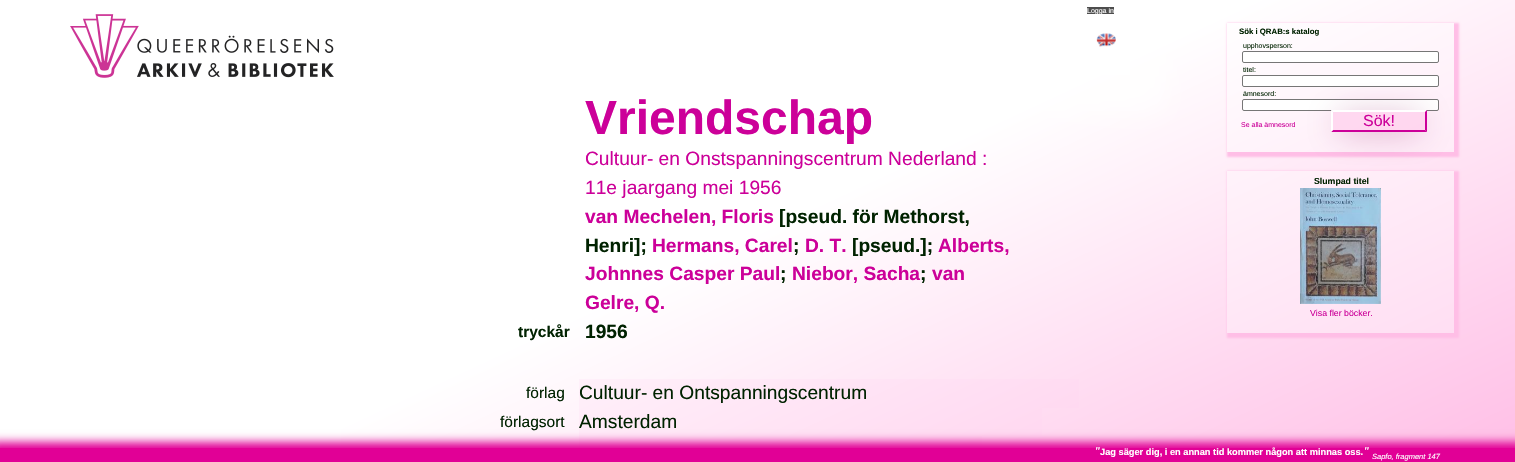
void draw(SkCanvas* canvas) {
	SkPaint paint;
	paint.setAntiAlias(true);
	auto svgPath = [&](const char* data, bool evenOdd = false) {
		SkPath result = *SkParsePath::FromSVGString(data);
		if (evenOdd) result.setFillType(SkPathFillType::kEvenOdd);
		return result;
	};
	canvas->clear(0xffffffff);
	{
		const SkColor colors[] = {0xffffffff, 0xffffffff, 0xffffbee6};
		const float stops[] = {0, 0.5, 1};
		const SkPoint ends[] = {{534, -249}, {981, 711}};
		paint.setShader(SkGradientShader::MakeLinear(ends, colors, stops, 3, SkTileMode::kClamp));
		paint.setAlpha(255);
	}
	canvas->drawRect(SkRect::MakeXYWH(341, 0, 1174, 448), paint);
	{
		const SkColor colors[] = {0xfffff6fc, 0xfffff6fc, 0xffffc2e8};
		const float stops[] = {0, 0.5, 1};
		const SkPoint ends[] = {{534, -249}, {981, 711}};
		paint.setShader(SkGradientShader::MakeLinear(ends, colors, stops, 3, SkTileMode::kClamp));
		paint.setAlpha(255);
	}
	canvas->drawRect(SkRect::MakeXYWH(579, 436, 403, 12), paint);
	canvas->drawRect(SkRect::MakeXYWH(579, 408, 463, 28), paint);
	canvas->drawRect(SkRect::MakeXYWH(579, 379, 500, 29), paint);
	{
		const SkColor colors[] = {0xffffffff, 0xffffffff, 0xffffd2ee};
		const float stops[] = {0, 0.5, 1};
		const SkPoint ends[] = {{534, -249}, {981, 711}};
		paint.setShader(SkGradientShader::MakeLinear(ends, colors, stops, 3, SkTileMode::kClamp));
		paint.setAlpha(255);
	}
	canvas->drawRect(SkRect::MakeXYWH(1227, 171, 227, 162), paint);
	canvas->drawRect(SkRect::MakeXYWH(1227, 23, 227, 129), paint);
	paint.setShader(nullptr);
	paint.setColor(0xffffffff);
	paint.setMaskFilter(SkMaskFilter::MakeBlur(kNormal_SkBlurStyle, 15));
	canvas->drawRect(SkRect::MakeXYWH(-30, -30, 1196, 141), paint);
	paint.setMaskFilter(nullptr);
	paint.setColor(0xff4d4d4d);
	canvas->drawRect(SkRect::MakeXYWH(1087, 7, 27, 7), paint);
	SkFont f1(fontMgr->matchFamilyStyle("Liberation Sans", SkFontStyle::Normal()), 7);
	f1.setSubpixel(true);
	paint.setColor(0xffffffff);
	canvas->drawString("Logga in", 1087, 13, f1, paint);
	canvas->drawImageRect(SkImages::DeferredFromEncodedData(SkData::MakeFromFileName("img1.png")), SkRect::MakeXYWH(1096, 33, 20, 14), SkSamplingOptions());
	canvas->drawImageRect(SkImages::DeferredFromEncodedData(SkData::MakeFromFileName("img2.png")), SkRect::MakeXYWH(70, 14, 264, 64), SkSamplingOptions());
	canvas->save();
	canvas->clipPath(svgPath("M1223 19H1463V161H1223ZM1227 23H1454V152H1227Z", true), true);
	paint.setColor(0xffffbee6);
	paint.setMaskFilter(SkMaskFilter::MakeBlur(kNormal_SkBlurStyle, 1));
	canvas->drawRect(SkRect::MakeXYWH(1227, 23, 232, 134), paint);
	paint.setMaskFilter(nullptr);
	canvas->restore();
	SkFont f2(fontMgr->matchFamilyStyle("Liberation Sans", SkFontStyle::Bold()), 7.8);
	f2.setSubpixel(true);
	paint.setColor(0xff002200);
	canvas->drawString("Sök i QRAB:s katalog", 1239, 34, f2, paint);
	canvas->drawString("upphovsperson:", 1243, 48, f1, paint);
	paint.setColor(0xffffffff);
	canvas->drawRoundRect(SkRect::MakeXYWH(1242.5, 51.5, 196, 11), 1.5, 1.5, paint);
	paint.setStroke(true);
	paint.setStrokeWidth(1);
	paint.setColor(0xff767676);
	canvas->drawRoundRect(SkRect::MakeXYWH(1242.5, 51.5, 196, 11), 1.5, 1.5, paint);
	paint.setStroke(false);
	paint.setColor(0xff002200);
	canvas->drawString("titel:", 1243, 72, f1, paint);
	paint.setColor(0xffffffff);
	canvas->drawRoundRect(SkRect::MakeXYWH(1242.5, 75.5, 196, 11), 1.5, 1.5, paint);
	paint.setStroke(true);
	paint.setColor(0xff767676);
	canvas->drawRoundRect(SkRect::MakeXYWH(1242.5, 75.5, 196, 11), 1.5, 1.5, paint);
	paint.setStroke(false);
	paint.setColor(0xff002200);
	canvas->drawString("ämnesord:", 1243, 96, f1, paint);
	paint.setColor(0xffffffff);
	canvas->drawRoundRect(SkRect::MakeXYWH(1242.5, 99.5, 196, 11), 1.5, 1.5, paint);
	paint.setStroke(true);
	paint.setColor(0xff767676);
	canvas->drawRoundRect(SkRect::MakeXYWH(1242.5, 99.5, 196, 11), 1.5, 1.5, paint);
	paint.setStroke(false);
	paint.setColor(0xffcc0099);
	canvas->drawString("Se alla ämnesord", 1241, 127, f1, paint);
	canvas->save();
	canvas->clipPath(svgPath("M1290 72H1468V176H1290ZM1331 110H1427V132H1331Z", true), true);
	paint.setColor(0xff961464);
	paint.setMaskFilter(SkMaskFilter::MakeBlur(kNormal_SkBlurStyle, 16));
	canvas->drawRect(SkRect::MakeXYWH(1339, 121, 80, 6), paint);
	paint.setMaskFilter(nullptr);
	canvas->restore();
	paint.setColor(0x80ffbee6);
	canvas->drawRect(SkRect::MakeXYWH(1331, 110, 96, 22), paint);
	paint.setColor(0xffffffff);
	canvas->drawPath(svgPath("M1331 110H1427L1425 112H1333Z"), paint);
	paint.setColor(0xffcc0099);
	canvas->drawPath(svgPath("M1427 110V132L1425 130V112Z"), paint);
	canvas->drawPath(svgPath("M1427 132H1331L1333 130H1425Z"), paint);
	paint.setColor(0xffffffff);
	canvas->drawPath(svgPath("M1331 132V110L1333 112V130Z"), paint);
	SkFont f3(fontMgr->matchFamilyStyle("Liberation Sans", SkFontStyle::Normal()), 16);
	f3.setSubpixel(true);
	paint.setColor(0xffcc0099);
	canvas->drawString("Sök!", 1363, 126, f3, paint);
	SkFont f4(fontMgr->matchFamilyStyle("Liberation Sans", SkFontStyle::Bold()), 48);
	f4.setSubpixel(true);
	canvas->drawString("Vriendschap", 585, 134, f4, paint);
	SkFont f5(fontMgr->matchFamilyStyle("Liberation Sans", SkFontStyle::Normal()), 19.2);
	f5.setSubpixel(true);
	canvas->drawString("Cultuur- en Onstspanningscentrum Nederland :", 585, 165, f5, paint);
	canvas->drawString("11e jaargang mei 1956", 585, 194, f5, paint);
	SkFont f6(fontMgr->matchFamilyStyle("Liberation Sans", SkFontStyle::Bold()), 19.2);
	f6.setSubpixel(true);
	canvas->drawString("van Mechelen, Floris", 585, 223, f6, paint);
	paint.setColor(0xff002200);
	canvas->drawString("[pseud. för Methorst,", 779, 223, f6, paint);
	canvas->drawString("Henri];", 585, 252, f6, paint);
	paint.setColor(0xffcc0099);
	canvas->drawString("Hermans, Carel", 652, 252, f6, paint);
	paint.setColor(0xff002200);
	canvas->drawString(";", 793, 252, f6, paint);
	paint.setColor(0xffcc0099);
	canvas->drawString("D. T.", 805, 252, f6, paint);
	paint.setColor(0xff002200);
	canvas->drawString("[pseud.];", 852, 252, f6, paint);
	paint.setColor(0xffcc0099);
	canvas->drawString("Alberts,", 938, 252, f6, paint);
	canvas->drawString("Johnnes Casper Paul", 585, 280, f6, paint);
	paint.setColor(0xff002200);
	canvas->drawString(";", 780, 280, f6, paint);
	paint.setColor(0xffcc0099);
	canvas->drawString("Niebor, Sacha", 792, 280, f6, paint);
	paint.setColor(0xff002200);
	canvas->drawString(";", 920, 280, f6, paint);
	paint.setColor(0xffcc0099);
	canvas->drawString("van", 932, 280, f6, paint);
	canvas->drawString("Gelre, Q.", 585, 309, f6, paint);
	SkFont f7(fontMgr->matchFamilyStyle("Liberation Sans", SkFontStyle::Bold()), 15.5);
	f7.setSubpixel(true);
	paint.setColor(0xff002200);
	canvas->drawString("tryckår", 518, 337, f7, paint);
	canvas->drawString("1956", 585, 338, f6, paint);
	SkFont f8(fontMgr->matchFamilyStyle("Liberation Sans", SkFontStyle::Normal()), 15.5);
	f8.setSubpixel(true);
	canvas->drawString("förlag", 526, 398, f8, paint);
	canvas->drawString("Cultuur- en Ontspanningscentrum", 579, 399, f5, paint);
	canvas->drawString("förlagsort", 500, 427, f8, paint);
	canvas->drawString("Amsterdam", 579, 428, f5, paint);
	canvas->save();
	canvas->clipPath(svgPath("M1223 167H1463V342H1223ZM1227 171H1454V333H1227Z", true), true);
	paint.setColor(0xffffbee6);
	paint.setMaskFilter(SkMaskFilter::MakeBlur(kNormal_SkBlurStyle, 1));
	canvas->drawRect(SkRect::MakeXYWH(1227, 171, 232, 167), paint);
	paint.setMaskFilter(nullptr);
	canvas->restore();
	SkFont f9(fontMgr->matchFamilyStyle("Liberation Sans", SkFontStyle::Bold()), 8.75);
	f9.setSubpixel(true);
	paint.setColor(0xff002200);
	canvas->drawString("Slumpad titel", 1314, 184, f9, paint);
	canvas->drawImageRect(SkImages::DeferredFromEncodedData(SkData::MakeFromFileName("img3.png")), SkRect::MakeXYWH(1300, 188, 81, 116), SkSamplingOptions());
	SkFont f10(fontMgr->matchFamilyStyle("Liberation Sans", SkFontStyle::Normal()), 8.75);
	f10.setSubpixel(true);
	paint.setColor(0xffcc0099);
	canvas->drawString("Visa fler böcker.", 1310, 316, f10, paint);
	paint.setColor(0xffe10096);
	paint.setMaskFilter(SkMaskFilter::MakeBlur(kNormal_SkBlurStyle, 4.5));
	canvas->drawRect(SkRect::MakeXYWH(-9, 442, 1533, 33), paint);
	paint.setMaskFilter(nullptr);
	canvas->drawRect(SkRect::MakeXYWH(0, 448, 1515, 14), paint);
	SkFont f11(fontMgr->matchFamilyStyle("Liberation Serif", SkFontStyle::BoldItalic()), 12);
	f11.setSubpixel(true);
	paint.setColor(0xffffffff);
	canvas->drawString("\"", 1094, 455, f11, paint);
	SkFont f12(fontMgr->matchFamilyStyle("Liberation Sans", SkFontStyle::Bold()), 9.25);
	f12.setSubpixel(true);
	canvas->drawString("Jag säger dig, i en annan tid kommer någon att minnas oss.", 1100, 455, f12, paint);
	canvas->drawString("\"", 1363, 455, f11, paint);
	SkFont f13(fontMgr->matchFamilyStyle("Liberation Sans", SkFontStyle::Italic()), 7.5);
	f13.setSubpixel(true);
	canvas->drawString("Sapfo, fragment 147", 1372, 459, f13, paint);
}
